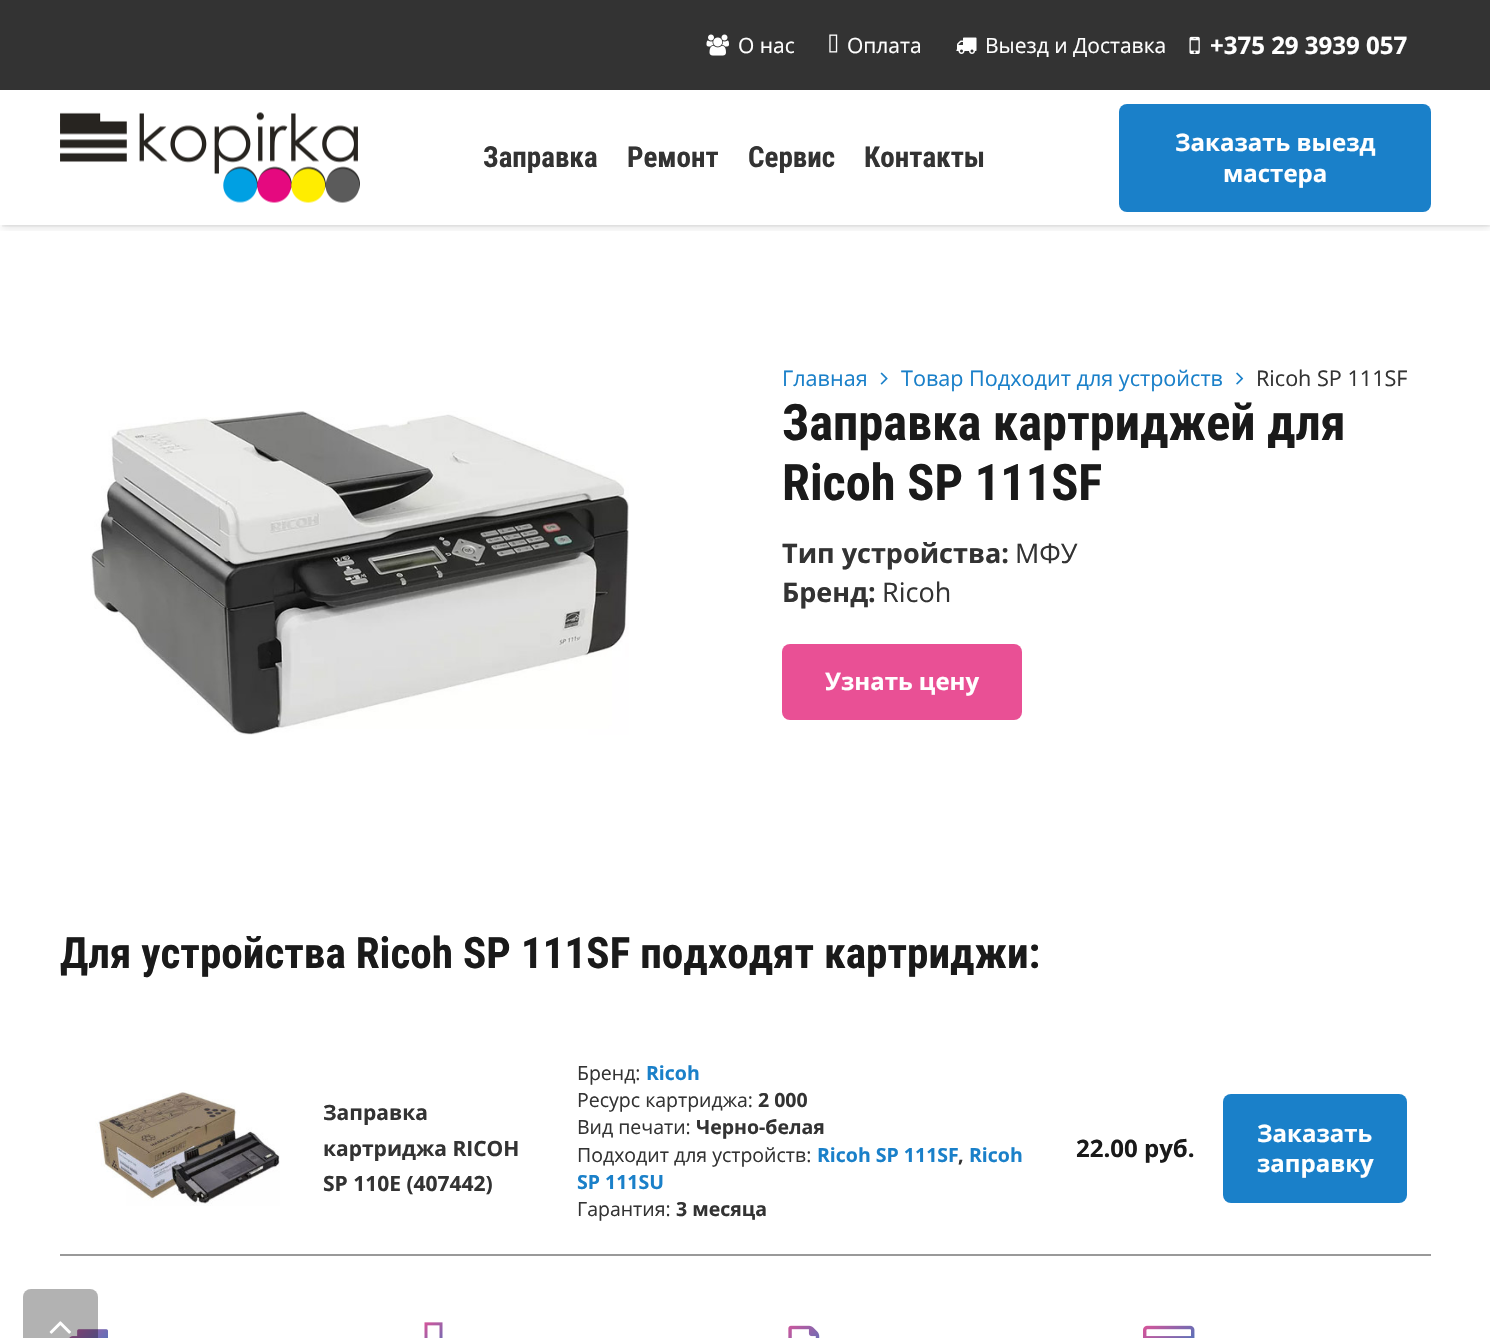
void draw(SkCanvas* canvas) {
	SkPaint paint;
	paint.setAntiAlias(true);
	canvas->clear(0xffffffff);
	paint.setColor(0xff333333);
	canvas->drawRect(SkRect::MakeXYWH(0, 0, 1490, 90), paint);
	canvas->drawImageRect(SkImages::DeferredFromEncodedData(SkData::MakeFromFileName("img1.png")), SkRect::MakeXYWH(706, 34, 23, 22), SkSamplingOptions());
	SkFont f1(fontMgr->matchFamilyStyle("Open Sans", SkFontStyle::Normal()), 21);
	f1.setSubpixel(true);
	paint.setColor(0xffffffff);
	canvas->drawString("О нас", 738, 53, f1, paint);
	canvas->drawImageRect(SkImages::DeferredFromEncodedData(SkData::MakeFromFileName("img2.png")), SkRect::MakeXYWH(829, 34, 9, 19), SkSamplingOptions());
	canvas->drawString("Оплата", 847, 53, f1, paint);
	canvas->drawImageRect(SkImages::DeferredFromEncodedData(SkData::MakeFromFileName("img3.png")), SkRect::MakeXYWH(956, 37, 21, 17), SkSamplingOptions());
	canvas->drawString("Выезд и Доставка", 985, 53, f1, paint);
	canvas->drawImageRect(SkImages::DeferredFromEncodedData(SkData::MakeFromFileName("img4.png")), SkRect::MakeXYWH(1189, 36, 11, 18), SkSamplingOptions());
	SkFont f2(fontMgr->matchFamilyStyle("Open Sans", SkFontStyle::Bold()), 24);
	f2.setSubpixel(true);
	canvas->drawString("+375 29 3939 057", 1210, 54, f2, paint);
	canvas->save();
	canvas->clipRect(SkRect::MakeXYWH(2, 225, 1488, 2));
	paint.setColor(0x0d000000);
	paint.setMaskFilter(SkMaskFilter::MakeBlur(kNormal_SkBlurStyle, 1));
	canvas->drawRect(SkRect::MakeXYWH(2, 95, 1488, 132), paint);
	paint.setMaskFilter(nullptr);
	canvas->restore();
	canvas->save();
	canvas->clipRect(SkRect::MakeXYWH(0, 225, 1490, 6));
	paint.setColor(0x1a000000);
	paint.setMaskFilter(SkMaskFilter::MakeBlur(kNormal_SkBlurStyle, 4));
	canvas->drawRect(SkRect::MakeXYWH(2, 96, 1488, 132), paint);
	paint.setMaskFilter(nullptr);
	canvas->restore();
	canvas->drawImageRect(SkImages::DeferredFromEncodedData(SkData::MakeFromFileName("img5.png")), SkRect::MakeXYWH(60, 112, 300, 91), SkSamplingOptions());
	SkFont f3(fontMgr->matchFamilyStyle("Roboto Condensed", SkFontStyle::Bold()), 29);
	f3.setSubpixel(true);
	paint.setColor(0xff333333);
	canvas->drawString("Заправка", 483, 167, f3, paint);
	canvas->drawString("Ремонт", 627, 167, f3, paint);
	canvas->drawString("Сервис", 748, 167, f3, paint);
	canvas->drawString("Контакты", 864, 167, f3, paint);
	paint.setColor(0xff1a80c9);
	canvas->drawRoundRect(SkRect::MakeXYWH(1119, 104, 312, 108), 8, 8, paint);
	paint.setColor(0xffffffff);
	canvas->drawString("Заказать выезд", 1175, 151, f2, paint);
	canvas->drawString("мастера", 1223, 182, f2, paint);
	canvas->drawImageRect(SkImages::DeferredFromEncodedData(SkData::MakeFromFileName("img6.png")), SkRect::MakeXYWH(90, 411, 539, 324), SkSamplingOptions());
	SkFont f4(fontMgr->matchFamilyStyle("Open Sans", SkFontStyle::Normal()), 21.6);
	f4.setSubpixel(true);
	paint.setColor(0xff1a80c9);
	canvas->drawString("Главная", 782, 386, f4, paint);
	canvas->drawImageRect(SkImages::DeferredFromEncodedData(SkData::MakeFromFileName("img7.png")), SkRect::MakeXYWH(880, 372, 8, 13), SkSamplingOptions());
	canvas->drawString("Товар Подходит для устройств", 901, 386, f4, paint);
	canvas->drawImageRect(SkImages::DeferredFromEncodedData(SkData::MakeFromFileName("img8.png")), SkRect::MakeXYWH(1236, 372, 8, 13), SkSamplingOptions());
	paint.setColor(0xff333333);
	canvas->drawString("Ricoh SP 111SF", 1256, 386, f4, paint);
	SkFont f5(fontMgr->matchFamilyStyle("Roboto Condensed", SkFontStyle::Bold()), 50.4);
	f5.setSubpixel(true);
	paint.setColor(0xff1a1a1a);
	canvas->drawString("Заправка картриджей для", 782, 440, f5, paint);
	canvas->drawString("Ricoh SP 111SF", 782, 500, f5, paint);
	SkFont f6(fontMgr->matchFamilyStyle("Open Sans", SkFontStyle::Bold()), 27);
	f6.setSubpixel(true);
	paint.setColor(0xff333333);
	canvas->drawString("Тип устройства:", 782, 563, f6, paint);
	SkFont f7(fontMgr->matchFamilyStyle("Open Sans", SkFontStyle::Normal()), 27);
	f7.setSubpixel(true);
	canvas->drawString("МФУ", 1015, 563, f7, paint);
	canvas->drawString("Бренд:", 782, 602, f6, paint);
	canvas->drawString("Ricoh", 882, 602, f7, paint);
	paint.setColor(0xffe95095);
	canvas->drawRoundRect(SkRect::MakeXYWH(782, 644, 240, 76), 8, 8, paint);
	paint.setColor(0xffffffff);
	canvas->drawString("Узнать цену", 825, 690, f2, paint);
	SkFont f8(fontMgr->matchFamilyStyle("Roboto Condensed", SkFontStyle::Bold()), 43.2);
	f8.setSubpixel(true);
	paint.setColor(0xff1a1a1a);
	canvas->drawString("Для устройства Ricoh SP 111SF подходят картриджи:", 60, 968, f8, paint);
	paint.setColor(0xff999999);
	canvas->drawRect(SkRect::MakeXYWH(60, 1254, 1371, 2), paint);
	canvas->drawImageRect(SkImages::DeferredFromEncodedData(SkData::MakeFromFileName("img9.png")), SkRect::MakeXYWH(95, 1090, 185, 116), SkSamplingOptions());
	SkFont f9(fontMgr->matchFamilyStyle("Open Sans", SkFontStyle::Bold()), 21);
	f9.setSubpixel(true);
	paint.setColor(0xff333333);
	canvas->drawString("Заправка", 323, 1120, f9, paint);
	canvas->drawString("картриджа RICOH", 323, 1156, f9, paint);
	canvas->drawString("SP 110E (407442)", 323, 1191, f9, paint);
	SkFont f10(fontMgr->matchFamilyStyle("Open Sans", SkFontStyle::Normal()), 19.5);
	f10.setSubpixel(true);
	canvas->drawString("Бренд:", 577, 1080, f10, paint);
	SkFont f11(fontMgr->matchFamilyStyle("Open Sans", SkFontStyle::Bold()), 19.5);
	f11.setSubpixel(true);
	paint.setColor(0xff1a80c9);
	canvas->drawString("Ricoh", 646, 1080, f11, paint);
	paint.setColor(0xff333333);
	canvas->drawString("Ресурс картриджа:", 577, 1107, f10, paint);
	canvas->drawString("2 000", 758, 1107, f11, paint);
	canvas->drawString("Вид печати:", 577, 1134, f10, paint);
	canvas->drawString("Черно-белая", 696, 1134, f11, paint);
	canvas->drawString("Подходит для устройств:", 577, 1162, f10, paint);
	paint.setColor(0xff1a80c9);
	canvas->drawString("Ricoh SP 111SF", 817, 1162, f11, paint);
	paint.setColor(0xff333333);
	canvas->drawString(",", 958, 1162, f11, paint);
	paint.setColor(0xff1a80c9);
	canvas->drawString("Ricoh", 969, 1162, f11, paint);
	canvas->drawString("SP 111SU", 577, 1189, f11, paint);
	paint.setColor(0xff333333);
	canvas->drawString("Гарантия:", 577, 1216, f10, paint);
	canvas->drawString("3 месяца", 676, 1216, f11, paint);
	paint.setColor(0xff1a1a1a);
	canvas->drawString("22.00 руб.", 1076, 1157, f2, paint);
	paint.setColor(0xff1a80c9);
	canvas->drawRoundRect(SkRect::MakeXYWH(1223, 1094, 184, 109), 8, 8, paint);
	paint.setColor(0xffffffff);
	canvas->drawString("Заказать", 1257, 1142, f2, paint);
	canvas->drawString("заправку", 1257, 1172, f2, paint);
	canvas->drawImageRect(SkImages::DeferredFromEncodedData(SkData::MakeFromFileName("img10.png")), SkRect::MakeXYWH(69, 1329, 39, 9), SkSamplingOptions());
	canvas->drawImageRect(SkImages::DeferredFromEncodedData(SkData::MakeFromFileName("img11.png")), SkRect::MakeXYWH(424, 1322, 19, 16), SkSamplingOptions());
	canvas->drawImageRect(SkImages::DeferredFromEncodedData(SkData::MakeFromFileName("img12.png")), SkRect::MakeXYWH(788, 1325, 32, 13), SkSamplingOptions());
	canvas->drawImageRect(SkImages::DeferredFromEncodedData(SkData::MakeFromFileName("img13.png")), SkRect::MakeXYWH(1143, 1325, 52, 13), SkSamplingOptions());
	paint.setColor(0x4d000000);
	canvas->drawRoundRect(SkRect::MakeXYWH(23, 1289, 75, 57), 8, 8, paint);
	canvas->drawImageRect(SkImages::DeferredFromEncodedData(SkData::MakeFromFileName("img14.png")), SkRect::MakeXYWH(49, 1321, 22, 13), SkSamplingOptions());
}
